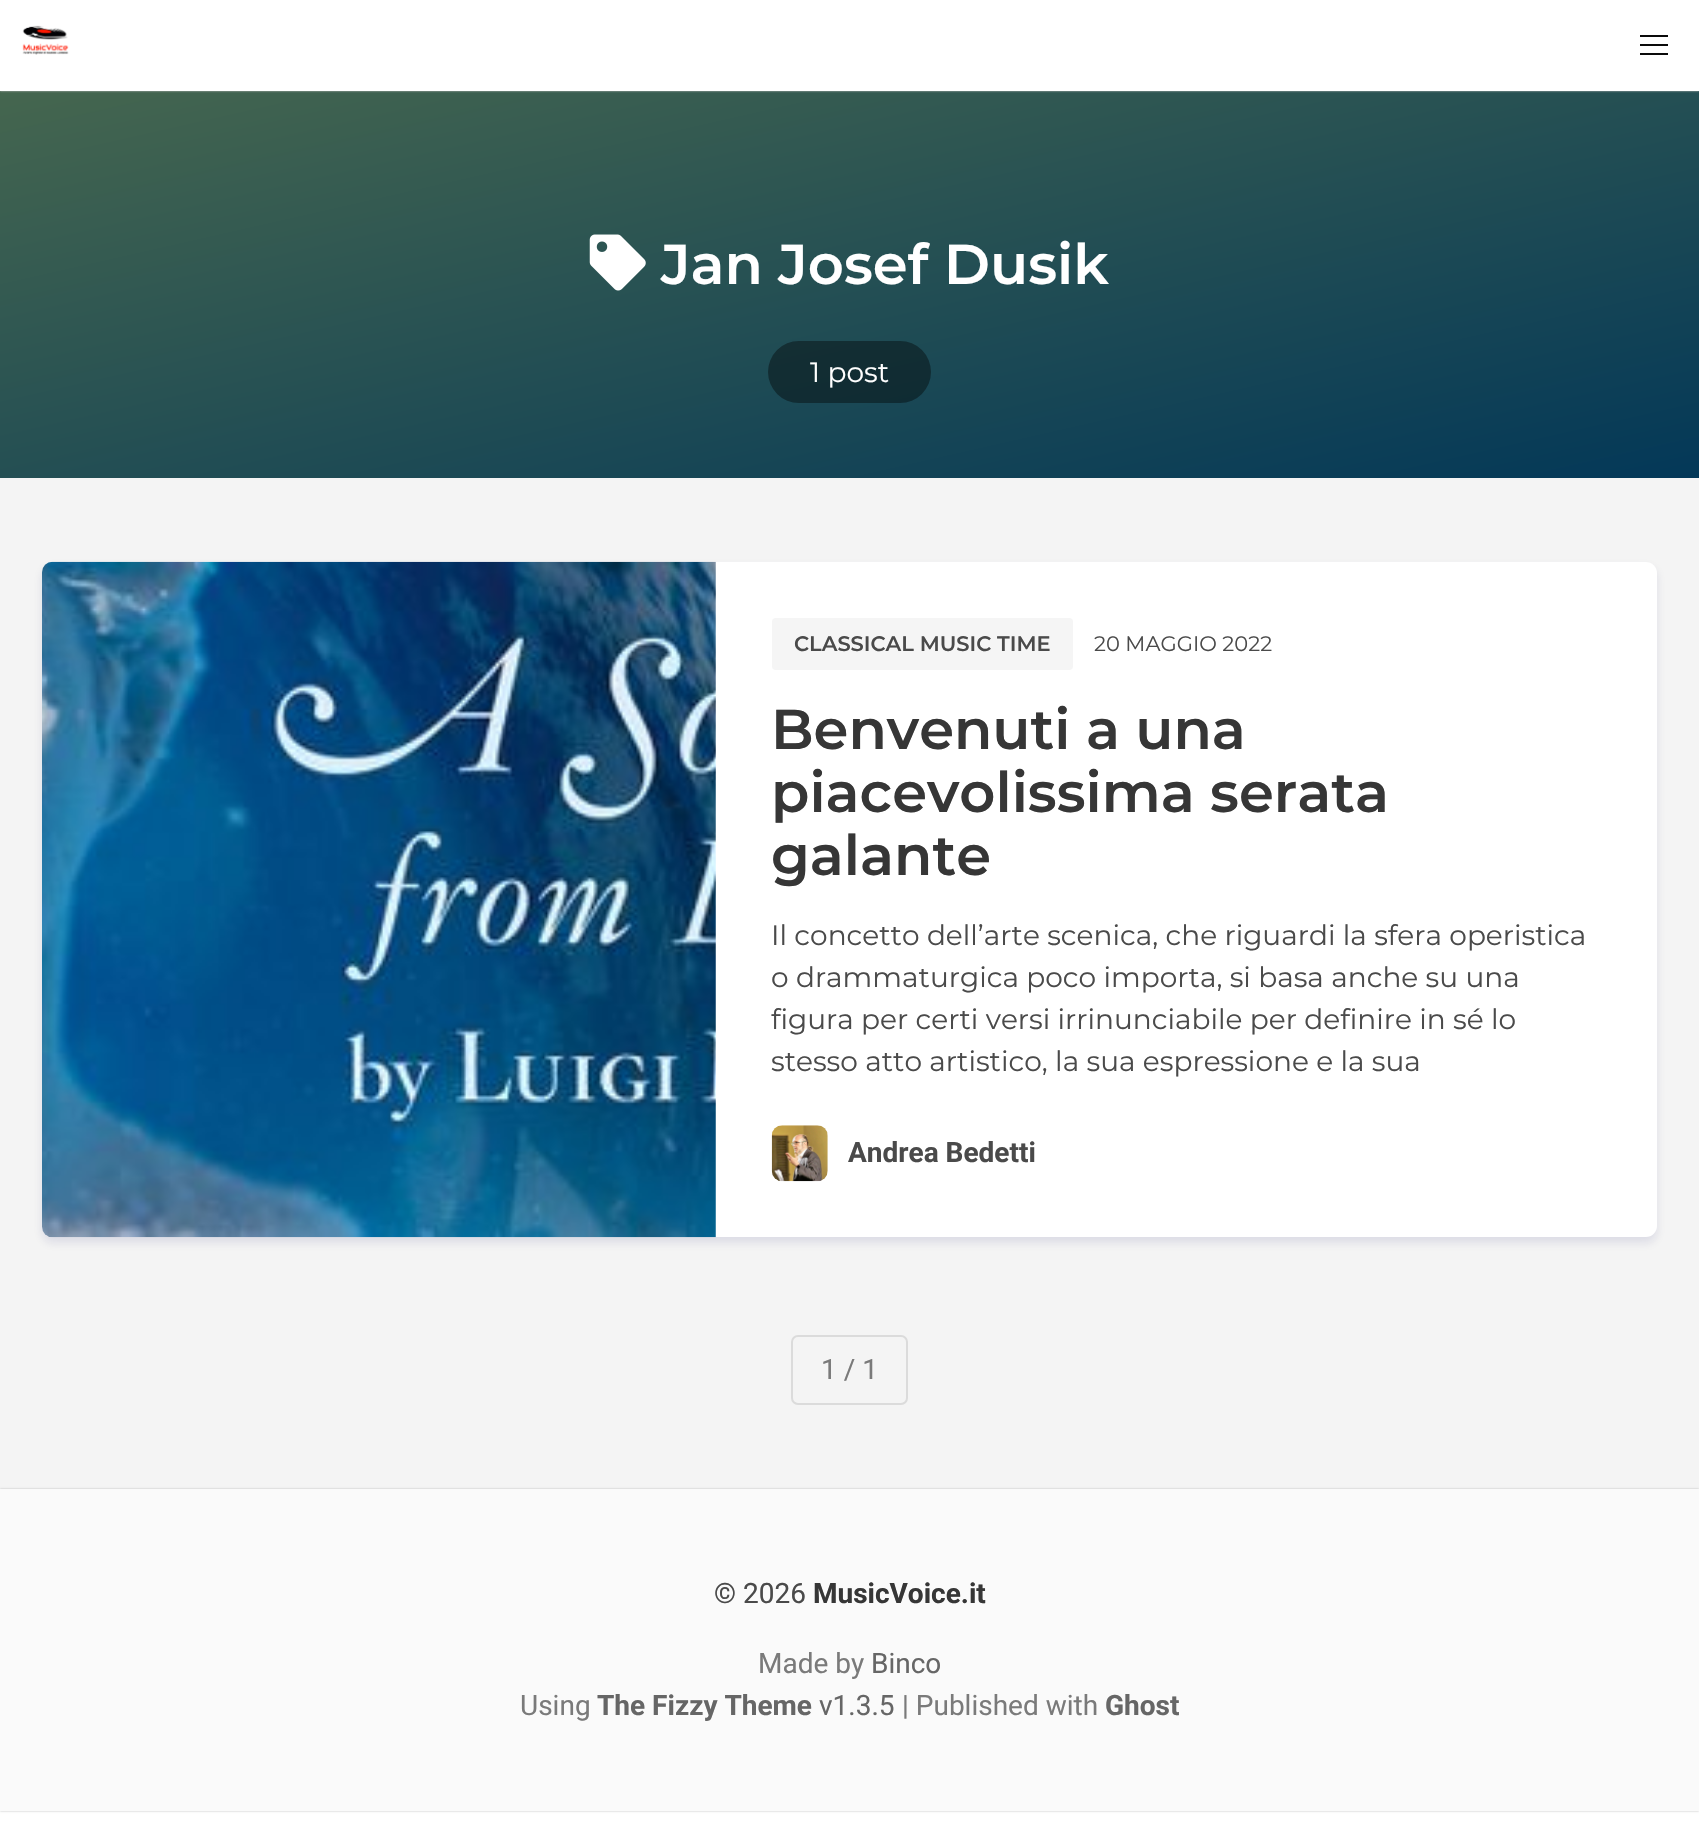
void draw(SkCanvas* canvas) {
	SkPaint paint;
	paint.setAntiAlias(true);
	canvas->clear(0xffffffff);
	paint.setColor(0xfff4f4f4);
	canvas->drawRect(SkRect::MakeXYWH(0, 478, 1699, 1011), paint);
	{
		const SkColor colors[] = {0xff45664f, 0xff033858};
		const float stops[] = {0, 1};
		const SkPoint ends[] = {{766, -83}, {933, 652}};
		paint.setShader(SkGradientShader::MakeLinear(ends, colors, stops, 2, SkTileMode::kClamp));
		paint.setAlpha(255);
	}
	canvas->drawRect(SkRect::MakeXYWH(0, 91, 1699, 387), paint);
	canvas->save();
	canvas->clipRect(SkRect::MakeXYWH(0, 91, 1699, 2));
	paint.setShader(nullptr);
	paint.setColor(0xffbbbbbb);
	paint.setMaskFilter(SkMaskFilter::MakeBlur(kNormal_SkBlurStyle, 1));
	canvas->drawRect(SkRect::MakeXYWH(0, 0, 1699, 91), paint);
	paint.setMaskFilter(nullptr);
	canvas->restore();
	canvas->drawImageRect(SkImages::DeferredFromEncodedData(SkData::MakeFromFileName("img1.png")), SkRect::MakeXYWH(22, 25, 47, 30), SkSamplingOptions());
	paint.setColor(0xff0a0a0a);
	canvas->drawRect(SkRect::MakeXYWH(1640, 35, 28, 2), paint);
	canvas->drawRect(SkRect::MakeXYWH(1640, 44, 28, 2), paint);
	canvas->drawRect(SkRect::MakeXYWH(1640, 53, 28, 2), paint);
	canvas->drawImageRect(SkImages::DeferredFromEncodedData(SkData::MakeFromFileName("img2.png")), SkRect::MakeXYWH(589, 234, 57, 57), SkSamplingOptions());
	SkFont f1(fontMgr->matchFamilyStyle("Montserrat", SkFontStyle(600, SkFontStyle::kNormal_Width, SkFontStyle::kUpright_Slant)), 56);
	f1.setSubpixel(true);
	paint.setColor(0xffffffff);
	canvas->drawString("Jan Josef Dusik", 661, 284, f1, paint);
	paint.setColor(0x66000000);
	canvas->drawRoundRect(SkRect::MakeXYWH(768, 341, 163, 62), 31, 31, paint);
	SkFont f2(fontMgr->matchFamilyStyle("Montserrat", SkFontStyle::Normal()), 28);
	f2.setSubpixel(true);
	paint.setColor(0xffffffff);
	canvas->drawString("1 post", 810, 382, f2, paint);
	paint.setColor(0x1a0c0c5e);
	paint.setMaskFilter(SkMaskFilter::MakeBlur(kNormal_SkBlurStyle, 5));
	canvas->drawRoundRect(SkRect::MakeXYWH(42, 567, 1615, 676), 11, 11, paint);
	paint.setMaskFilter(nullptr);
	paint.setColor(0xffffffff);
	canvas->drawRoundRect(SkRect::MakeXYWH(42, 562, 1615, 675), 11, 11, paint);
	canvas->drawImageRect(SkImages::DeferredFromEncodedData(SkData::MakeFromFileName("img3.png")), SkRect::MakeXYWH(42, 561, 674, 677), SkSamplingOptions());
	paint.setColor(0xfff5f5f5);
	canvas->drawRoundRect(SkRect::MakeXYWH(772, 618, 301, 52), 4, 4, paint);
	SkFont f3(fontMgr->matchFamilyStyle("Montserrat", SkFontStyle(600, SkFontStyle::kNormal_Width, SkFontStyle::kUpright_Slant)), 21);
	f3.setSubpixel(true);
	paint.setColor(0xff4a4a4a);
	canvas->drawString("CLASSICAL MUSIC TIME", 794, 651, f3, paint);
	SkFont f4(fontMgr->matchFamilyStyle("Montserrat", SkFontStyle::Normal()), 21);
	f4.setSubpixel(true);
	canvas->drawString("20 MAGGIO 2022", 1094, 651, f4, paint);
	paint.setColor(0xff363636);
	canvas->drawString("Benvenuti a una", 771, 749, f1, paint);
	canvas->drawString("piacevolissima serata", 771, 812, f1, paint);
	canvas->drawString("galante", 771, 875, f1, paint);
	paint.setColor(0xff4a4a4a);
	canvas->drawString("Il concetto dell’arte scenica, che riguardi la sfera operistica", 771, 945, f2, paint);
	canvas->drawString("o drammaturgica poco importa, si basa anche su una", 771, 987, f2, paint);
	canvas->drawString("figura per certi versi irrinunciabile per definire in sé lo", 771, 1029, f2, paint);
	canvas->drawString("stesso atto artistico, la sua espressione e la sua", 771, 1071, f2, paint);
	canvas->drawImageRect(SkImages::DeferredFromEncodedData(SkData::MakeFromFileName("img4.png")), SkRect::MakeXYWH(771, 1125, 57, 57), SkSamplingOptions());
	SkFont f5(fontMgr->matchFamilyStyle("Roboto", SkFontStyle::Bold()), 28);
	f5.setSubpixel(true);
	canvas->drawString("Andrea Bedetti", 848, 1162, f5, paint);
	paint.setStroke(true);
	paint.setStrokeWidth(2);
	paint.setColor(0xffdbdbdb);
	canvas->drawRoundRect(SkRect::MakeXYWH(792, 1336, 115, 68), 6, 6, paint);
	SkFont f6(fontMgr->matchFamilyStyle("Roboto", SkFontStyle::Normal()), 28);
	f6.setSubpixel(true);
	paint.setStroke(false);
	paint.setColor(0xff7a7a7a);
	canvas->drawString("1 / 1", 821, 1379, f6, paint);
	paint.setColor(0xffbbbbbb);
	paint.setMaskFilter(SkMaskFilter::MakeBlur(kNormal_SkBlurStyle, 1));
	canvas->drawRect(SkRect::MakeXYWH(0, 1489, 1699, 322), paint);
	paint.setMaskFilter(nullptr);
	paint.setColor(0xfffafafa);
	canvas->drawRect(SkRect::MakeXYWH(0, 1489, 1699, 322), paint);
	paint.setColor(0xff4a4a4a);
	canvas->drawString("© 2026", 714, 1603, f6, paint);
	paint.setColor(0xff363636);
	canvas->drawString("MusicVoice.it", 813, 1603, f5, paint);
	paint.setColor(0xff7a7a7a);
	canvas->drawString("Made by", 758, 1673, f6, paint);
	paint.setColor(0xff666666);
	canvas->drawString("Binco", 871, 1673, f6, paint);
	paint.setColor(0xff7a7a7a);
	canvas->drawString("Using", 520, 1715, f6, paint);
	paint.setColor(0xff666666);
	canvas->drawString("The Fizzy Theme", 597, 1715, f5, paint);
	canvas->drawString("v1.3.5", 819, 1715, f6, paint);
	paint.setColor(0xff7a7a7a);
	canvas->drawString("| Published with", 902, 1715, f6, paint);
	paint.setColor(0xff666666);
	canvas->drawString("Ghost", 1105, 1715, f5, paint);
}
